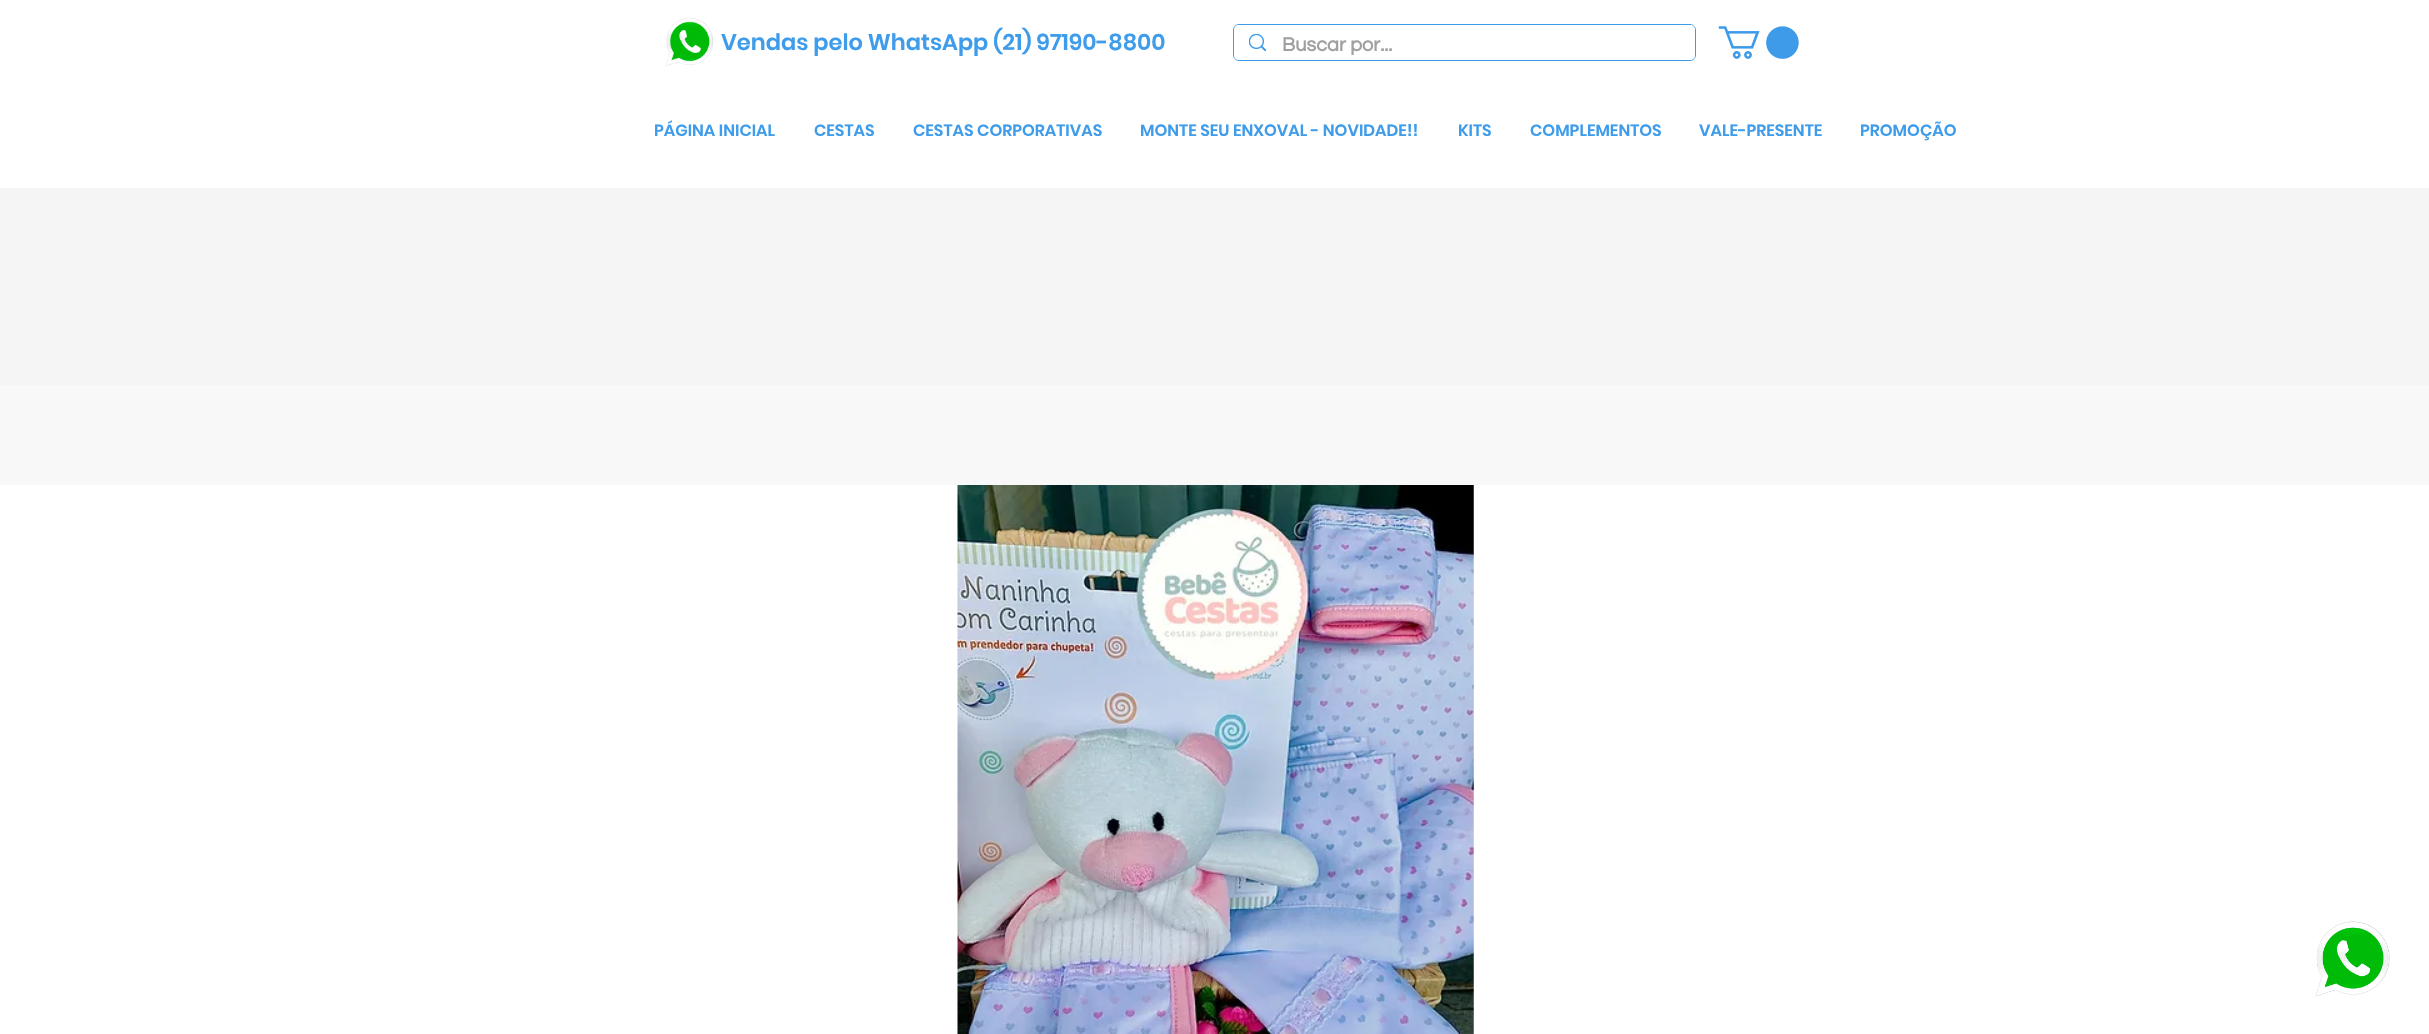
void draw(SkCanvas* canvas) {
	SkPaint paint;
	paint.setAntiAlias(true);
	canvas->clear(0xfff5f5f5);
	paint.setColor(0xffffffff);
	canvas->drawRect(SkRect::MakeXYWH(0, 0, 2429, 188), paint);
	canvas->drawImageRect(SkImages::DeferredFromEncodedData(SkData::MakeFromFileName("img1.png")), SkRect::MakeXYWH(665, 17, 49, 49), SkSamplingOptions());
	SkFont f1(fontMgr->matchFamilyStyle("Poppins", SkFontStyle(600, SkFontStyle::kNormal_Width, SkFontStyle::kUpright_Slant)), 22.5);
	f1.setSubpixel(true);
	paint.setColor(0xff3e9cea);
	canvas->drawString("Vendas pelo WhatsApp (21) 97190-8800", 721, 50, f1, paint);
	paint.setStroke(true);
	paint.setStrokeWidth(1);
	paint.setColor(0xff3d9be9);
	canvas->drawRoundRect(SkRect::MakeXYWH(1233.5, 24.5, 462, 36), 5.5, 5.5, paint);
	paint.setStroke(false);
	paint.setColor(0xffffffff);
	canvas->drawRoundRect(SkRect::MakeXYWH(1234, 25, 461, 35), 5, 5, paint);
	canvas->drawImageRect(SkImages::DeferredFromEncodedData(SkData::MakeFromFileName("img2.png")), SkRect::MakeXYWH(1249, 34, 17, 17), SkSamplingOptions());
	SkFont f2(fontMgr->matchFamilyStyle("Questrial", SkFontStyle::Bold()), 20);
	f2.setSubpixel(true);
	paint.setColor(0xffa0a09f);
	canvas->drawString("Buscar por...", 1282, 51, f2, paint);
	canvas->drawImageRect(SkImages::DeferredFromEncodedData(SkData::MakeFromFileName("img3.png")), SkRect::MakeXYWH(1718, 26, 81, 33), SkSamplingOptions());
	SkFont f3(fontMgr->matchFamilyStyle("Poppins", SkFontStyle(600, SkFontStyle::kNormal_Width, SkFontStyle::kUpright_Slant)), 16.25);
	f3.setSubpixel(true);
	paint.setColor(0xff3e9cea);
	canvas->drawString("PÁGINA INICIAL", 654, 136, f3, paint);
	canvas->drawString("CESTAS", 814, 136, f3, paint);
	canvas->drawString("CESTAS CORPORATIVAS", 913, 136, f3, paint);
	canvas->drawString("MONTE SEU ENXOVAL - NOVIDADE!!", 1140, 136, f3, paint);
	canvas->drawString("KITS", 1458, 136, f3, paint);
	canvas->drawString("COMPLEMENTOS", 1530, 136, f3, paint);
	canvas->drawString("VALE-PRESENTE", 1699, 136, f3, paint);
	canvas->drawString("PROMOÇÃO", 1860, 136, f3, paint);
	paint.setColor(0xfff8f8f8);
	canvas->drawRect(SkRect::MakeXYWH(0, 385, 2429, 100), paint);
	paint.setColor(0xffffffff);
	canvas->drawRect(SkRect::MakeXYWH(0, 485, 2429, 549), paint);
	canvas->drawImageRect(SkImages::DeferredFromEncodedData(SkData::MakeFromFileName("img4.png")), SkRect::MakeXYWH(957, 485, 517, 549), SkSamplingOptions());
	canvas->drawImageRect(SkImages::DeferredFromEncodedData(SkData::MakeFromFileName("img5.png")), SkRect::MakeXYWH(2315, 921, 75, 76), SkSamplingOptions());
}
